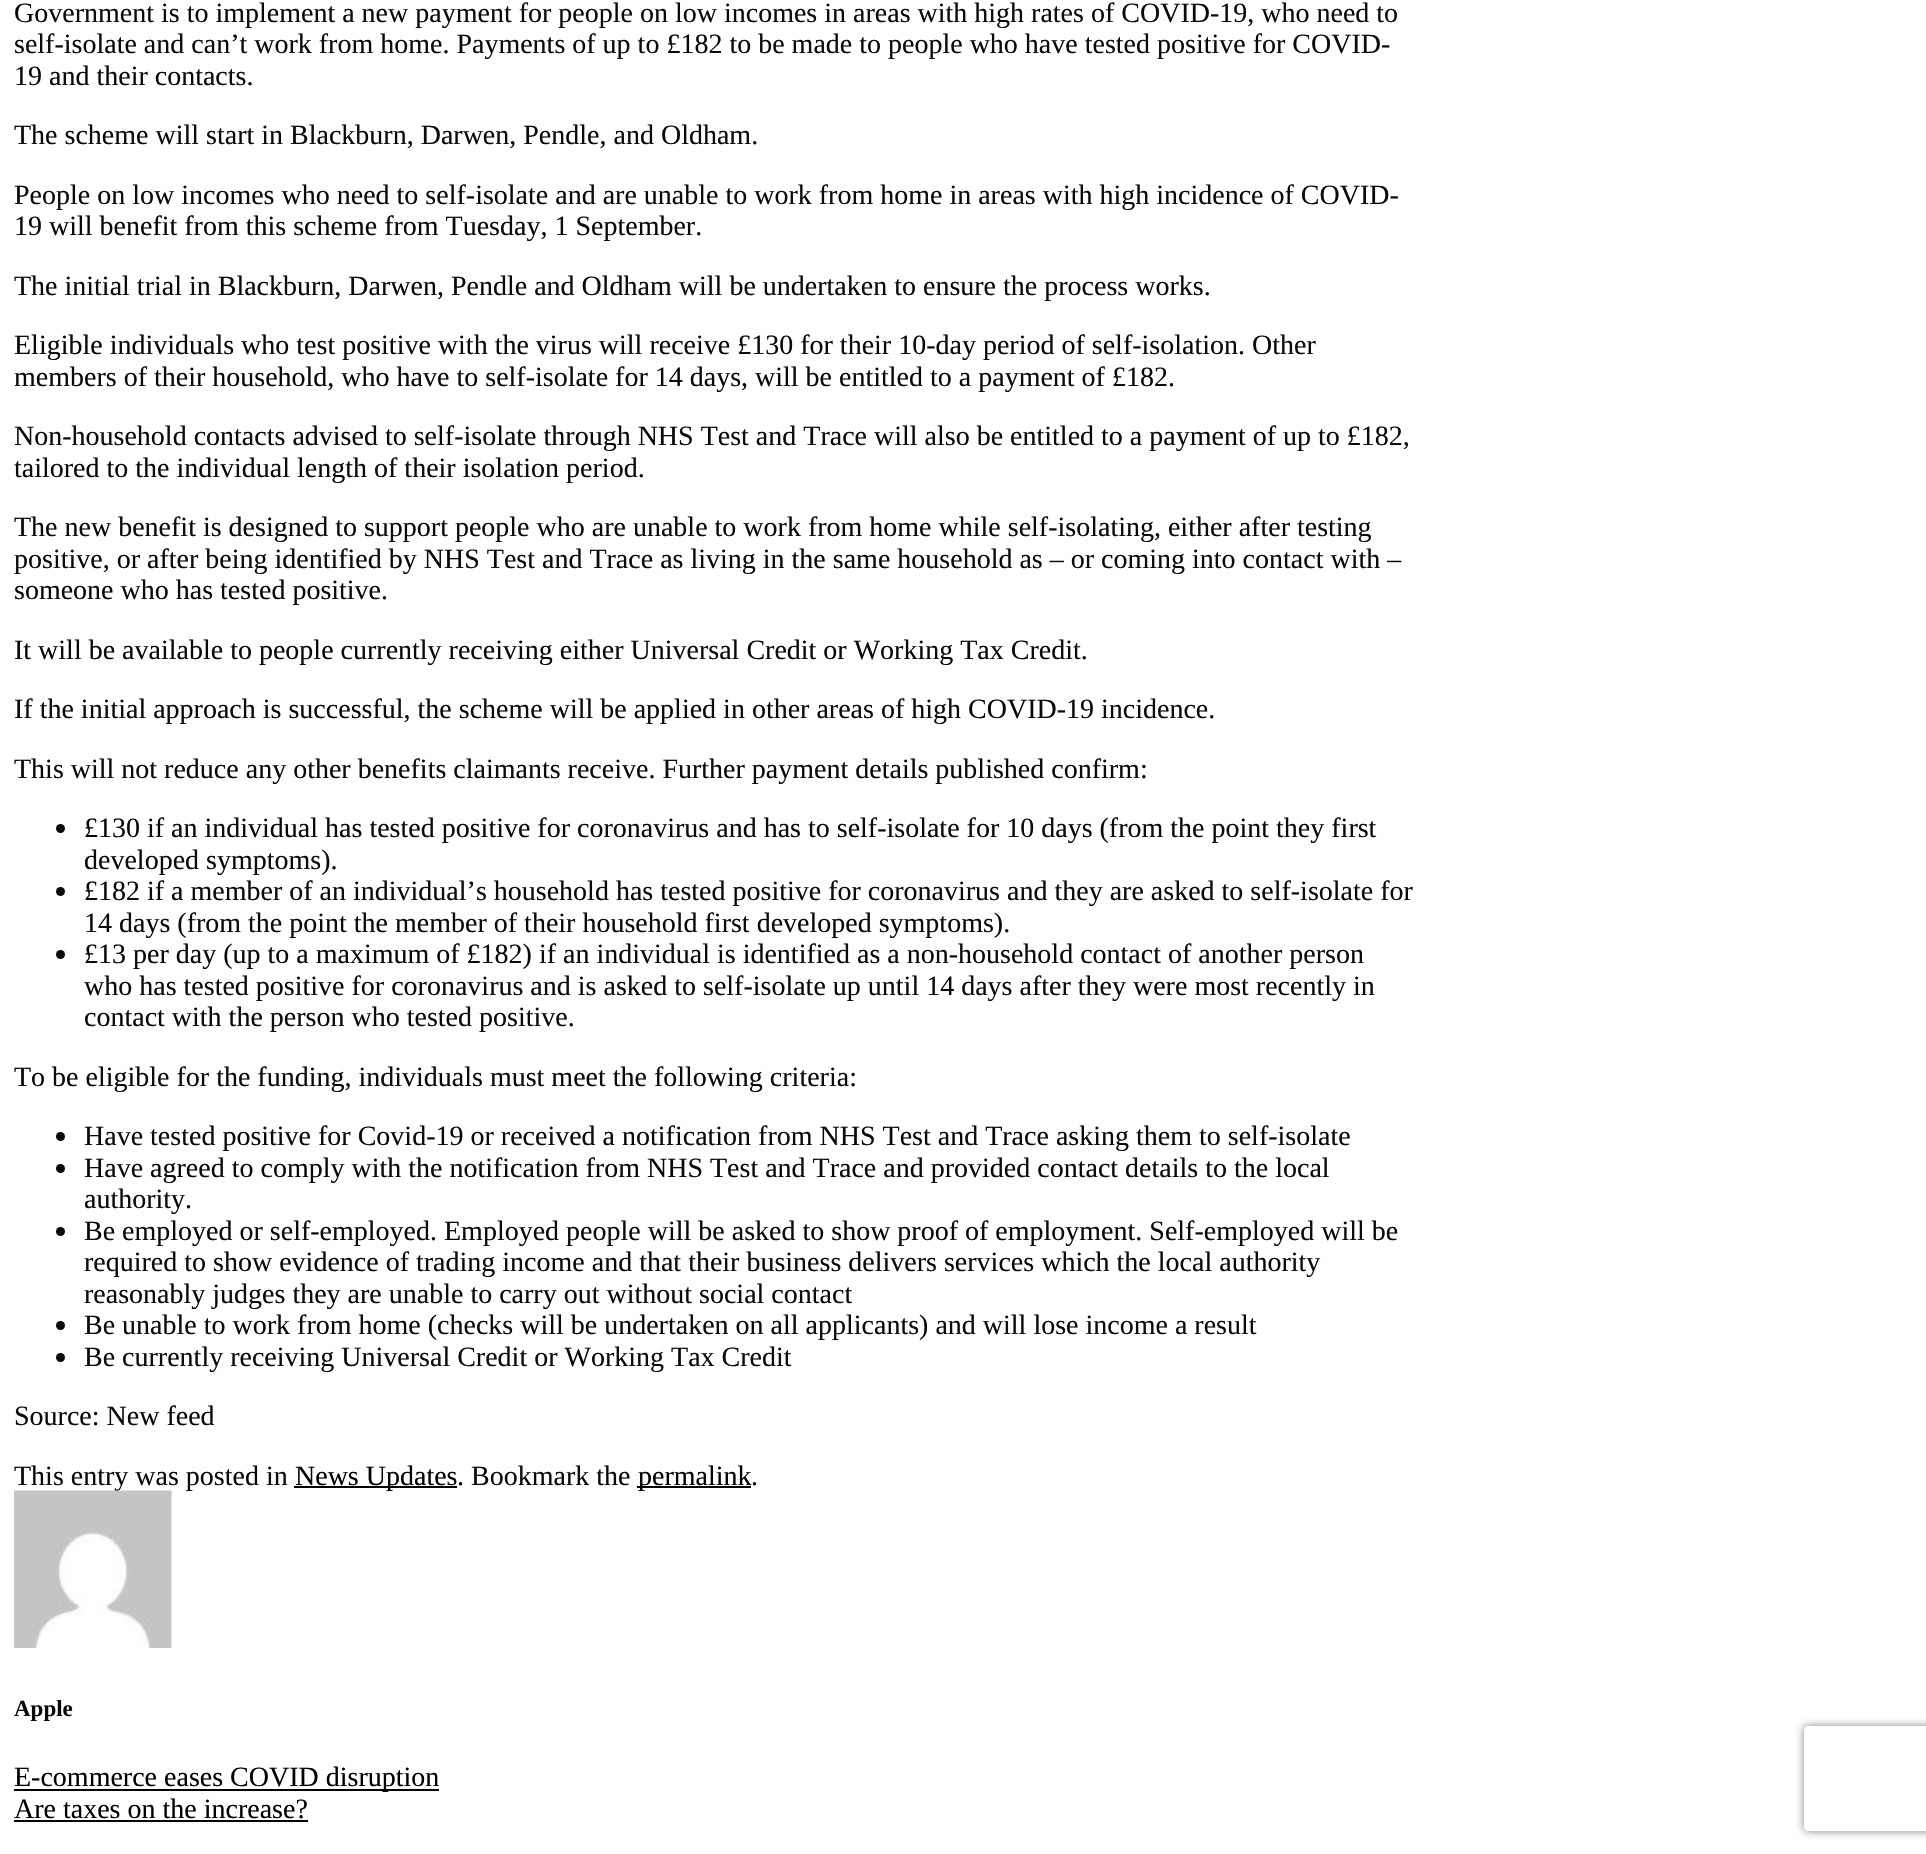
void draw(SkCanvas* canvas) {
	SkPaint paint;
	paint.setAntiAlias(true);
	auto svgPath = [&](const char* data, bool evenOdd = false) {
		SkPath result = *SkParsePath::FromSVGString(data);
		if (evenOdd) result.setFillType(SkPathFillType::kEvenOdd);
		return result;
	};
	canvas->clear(0xffffffff);
	SkFont f1(fontMgr->matchFamilyStyle("Tinos", SkFontStyle::Normal()), 28);
	f1.setSubpixel(true);
	paint.setColor(0xff0a0a0a);
	canvas->drawString("Government is to implement a new payment for people on low incomes in areas with high rates of COVID-19, who need to", 14, 22, f1, paint);
	canvas->drawString("self-isolate and can’t work from home. Payments of up to £182 to be made to people who have tested positive for COVID-", 14, 53, f1, paint);
	canvas->drawString("19 and their contacts.", 14, 85, f1, paint);
	canvas->drawString("The scheme will start in Blackburn, Darwen, Pendle, and Oldham.", 14, 144, f1, paint);
	canvas->drawString("People on low incomes who need to self-isolate and are unable to work from home in areas with high incidence of COVID-", 14, 204, f1, paint);
	canvas->drawString("19 will benefit from this scheme from Tuesday, 1 September.", 14, 235, f1, paint);
	canvas->drawString("The initial trial in Blackburn, Darwen, Pendle and Oldham will be undertaken to ensure the process works.", 14, 295, f1, paint);
	canvas->drawString("Eligible individuals who test positive with the virus will receive £130 for their 10-day period of self-isolation. Other", 14, 354, f1, paint);
	canvas->drawString("members of their household, who have to self-isolate for 14 days, will be entitled to a payment of £182.", 14, 386, f1, paint);
	canvas->drawString("Non-household contacts advised to self-isolate through NHS Test and Trace will also be entitled to a payment of up to £182,", 14, 445, f1, paint);
	canvas->drawString("tailored to the individual length of their isolation period.", 14, 477, f1, paint);
	canvas->drawString("The new benefit is designed to support people who are unable to work from home while self-isolating, either after testing", 14, 536, f1, paint);
	canvas->drawString("positive, or after being identified by NHS Test and Trace as living in the same household as – or coming into contact with –", 14, 568, f1, paint);
	canvas->drawString("someone who has tested positive.", 14, 599, f1, paint);
	canvas->drawString("It will be available to people currently receiving either Universal Credit or Working Tax Credit.", 14, 659, f1, paint);
	canvas->drawString("If the initial approach is successful, the scheme will be applied in other areas of high COVID-19 incidence.", 14, 718, f1, paint);
	canvas->drawString("This will not reduce any other benefits claimants receive. Further payment details published confirm:", 14, 778, f1, paint);
	canvas->drawCircle(60.5, 828.5, 4.5, paint);
	canvas->drawString("£130 if an individual has tested positive for coronavirus and has to self-isolate for 10 days (from the point they first", 84, 837, f1, paint);
	canvas->drawString("developed symptoms).", 84, 869, f1, paint);
	canvas->drawCircle(60.5, 891.5, 4.5, paint);
	canvas->drawString("£182 if a member of an individual’s household has tested positive for coronavirus and they are asked to self-isolate for", 84, 900, f1, paint);
	canvas->drawString("14 days (from the point the member of their household first developed symptoms).", 84, 932, f1, paint);
	canvas->drawCircle(60.5, 954.5, 4.5, paint);
	canvas->drawString("£13 per day (up to a maximum of £182) if an individual is identified as a non-household contact of another person", 84, 963, f1, paint);
	canvas->drawString("who has tested positive for coronavirus and is asked to self-isolate up until 14 days after they were most recently in", 84, 995, f1, paint);
	canvas->drawString("contact with the person who tested positive.", 84, 1026, f1, paint);
	canvas->drawString("To be eligible for the funding, individuals must meet the following criteria:", 14, 1086, f1, paint);
	canvas->drawCircle(60.5, 1136.5, 4.5, paint);
	canvas->drawString("Have tested positive for Covid-19 or received a notification from NHS Test and Trace asking them to self-isolate", 84, 1145, f1, paint);
	canvas->drawCircle(60.5, 1168.5, 4.5, paint);
	canvas->drawString("Have agreed to comply with the notification from NHS Test and Trace and provided contact details to the local", 84, 1177, f1, paint);
	canvas->drawString("authority.", 84, 1208, f1, paint);
	canvas->drawCircle(60.5, 1231.5, 4.5, paint);
	canvas->drawString("Be employed or self-employed. Employed people will be asked to show proof of employment. Self-employed will be", 84, 1240, f1, paint);
	canvas->drawString("required to show evidence of trading income and that their business delivers services which the local authority", 84, 1271, f1, paint);
	canvas->drawString("reasonably judges they are unable to carry out without social contact", 84, 1303, f1, paint);
	canvas->drawCircle(60.5, 1325.5, 4.5, paint);
	canvas->drawString("Be unable to work from home (checks will be undertaken on all applicants) and will lose income a result", 84, 1334, f1, paint);
	canvas->drawCircle(60.5, 1357.5, 4.5, paint);
	canvas->drawString("Be currently receiving Universal Credit or Working Tax Credit", 84, 1366, f1, paint);
	canvas->drawString("Source: New feed", 14, 1425, f1, paint);
	canvas->drawString("This entry was posted in", 14, 1485, f1, paint);
	paint.setColor(0xff000000);
	canvas->drawRect(SkRect::MakeXYWH(294, 1486, 163, 2), paint);
	canvas->drawString("News Updates", 295, 1485, f1, paint);
	paint.setColor(0xff0a0a0a);
	canvas->drawString(". Bookmark the", 457, 1485, f1, paint);
	paint.setColor(0xff000000);
	canvas->drawRect(SkRect::MakeXYWH(637, 1486, 114, 2), paint);
	canvas->drawString("permalink", 638, 1485, f1, paint);
	paint.setColor(0xff0a0a0a);
	canvas->drawString(".", 751, 1485, f1, paint);
	canvas->drawImageRect(SkImages::DeferredFromEncodedData(SkData::MakeFromFileName("img1.png")), SkRect::MakeXYWH(14, 1490, 158, 158), SkSamplingOptions());
	SkFont f2(fontMgr->matchFamilyStyle("Tinos", SkFontStyle::Bold()), 23);
	f2.setSubpixel(true);
	canvas->drawString("Apple", 14, 1716, f2, paint);
	paint.setColor(0xff000000);
	canvas->drawRect(SkRect::MakeXYWH(14, 1789, 425, 2), paint);
	canvas->drawString("E-commerce eases COVID disruption", 14, 1786, f1, paint);
	canvas->drawString("Are taxes on the increase?", 14, 1818, f1, paint);
	canvas->drawRect(SkRect::MakeXYWH(14, 1820, 294, 2), paint);
	canvas->save();
	canvas->clipPath(svgPath("M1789 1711H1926V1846H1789ZM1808 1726H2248C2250 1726 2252 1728 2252 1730V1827C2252 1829 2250 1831 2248 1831H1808C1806 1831 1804 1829 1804 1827V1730C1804 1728 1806 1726 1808 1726Z", true), true);
	paint.setColor(0xff808080);
	paint.setMaskFilter(SkMaskFilter::MakeBlur(kNormal_SkBlurStyle, 4.5));
	canvas->drawRoundRect(SkRect::MakeXYWH(1804, 1726, 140, 105), 4, 4, paint);
	paint.setMaskFilter(nullptr);
	canvas->restore();
}
